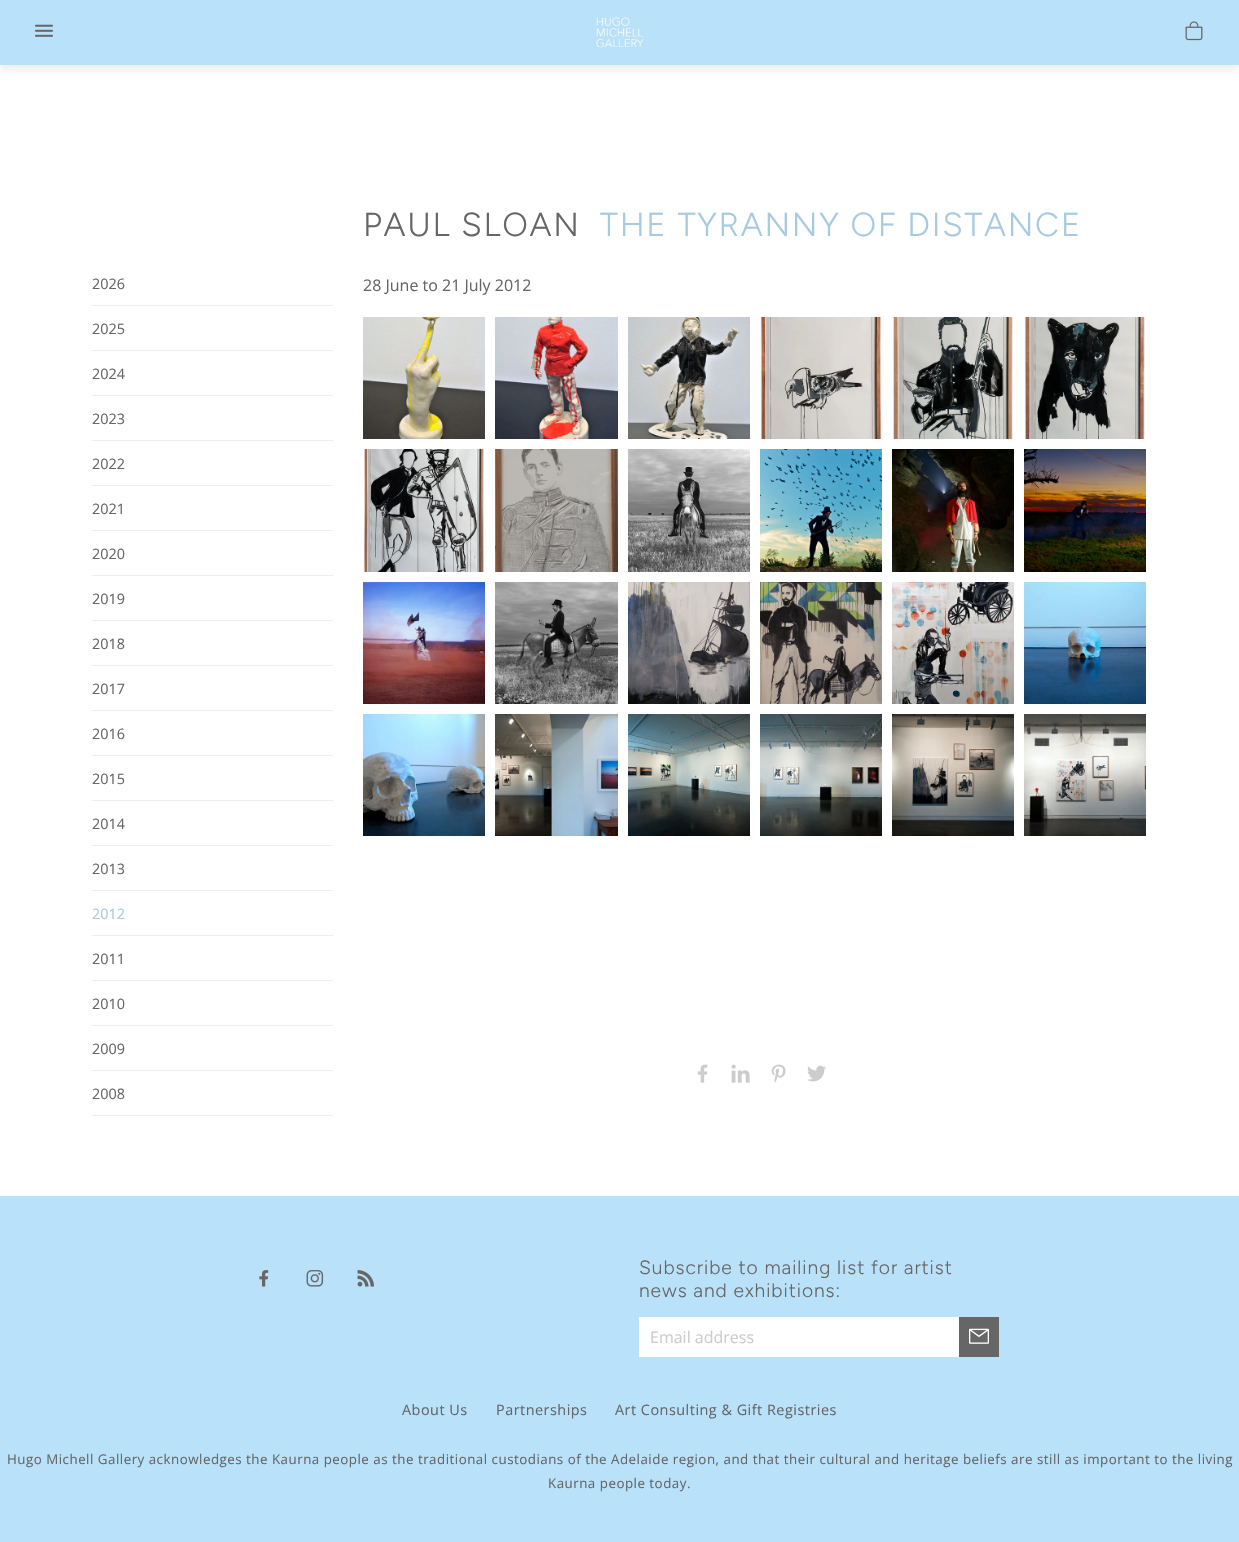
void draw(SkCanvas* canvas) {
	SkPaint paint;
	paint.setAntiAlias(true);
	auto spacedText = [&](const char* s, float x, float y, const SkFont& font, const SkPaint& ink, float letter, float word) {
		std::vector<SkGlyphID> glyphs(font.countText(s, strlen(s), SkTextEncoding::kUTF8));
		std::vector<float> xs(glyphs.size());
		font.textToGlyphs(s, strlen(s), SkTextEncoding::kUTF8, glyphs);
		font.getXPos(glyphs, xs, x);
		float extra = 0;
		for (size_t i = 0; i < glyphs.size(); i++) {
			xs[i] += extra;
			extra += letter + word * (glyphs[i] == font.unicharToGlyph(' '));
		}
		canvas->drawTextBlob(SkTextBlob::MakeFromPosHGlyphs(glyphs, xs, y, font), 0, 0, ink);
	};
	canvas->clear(0xffffffff);
	paint.setColor(0x14000000);
	paint.setMaskFilter(SkMaskFilter::MakeBlur(kNormal_SkBlurStyle, 4));
	canvas->drawRect(SkRect::MakeXYWH(0, 4, 1239, 65), paint);
	paint.setMaskFilter(nullptr);
	paint.setColor(0xffb9e1fa);
	canvas->drawRect(SkRect::MakeXYWH(0, 0, 1239, 65), paint);
	canvas->drawImageRect(SkImages::DeferredFromEncodedData(SkData::MakeFromFileName("img1.png")), SkRect::MakeXYWH(35, 24, 18, 13), SkSamplingOptions());
	canvas->drawImageRect(SkImages::DeferredFromEncodedData(SkData::MakeFromFileName("img2.png")), SkRect::MakeXYWH(596, 17, 48, 31), SkSamplingOptions());
	canvas->drawImageRect(SkImages::DeferredFromEncodedData(SkData::MakeFromFileName("img3.png")), SkRect::MakeXYWH(1185, 21, 18, 20), SkSamplingOptions());
	SkFont f1(fontMgr->matchFamilyStyle("Figtree", SkFontStyle(300, SkFontStyle::kNormal_Width, SkFontStyle::kUpright_Slant)), 33.2);
	f1.setSubpixel(true);
	paint.setColor(0xff666666);
	spacedText("PAUL SLOAN", 363, 236, f1, paint, 1.7, 0);
	paint.setColor(0xffa6cae0);
	spacedText("THE TYRANNY OF DISTANCE", 600, 236, f1, paint, 1.7, 0);
	SkFont f2(fontMgr->matchFamilyStyle("Open Sans", SkFontStyle::Normal()), 16);
	f2.setSubpixel(true);
	paint.setColor(0xff666666);
	canvas->drawString("28 June to 21 July 2012", 363, 291, f2, paint);
	canvas->drawImageRect(SkImages::DeferredFromEncodedData(SkData::MakeFromFileName("img4.png")), SkRect::MakeXYWH(363, 317, 122, 122), SkSamplingOptions());
	canvas->drawImageRect(SkImages::DeferredFromEncodedData(SkData::MakeFromFileName("img5.png")), SkRect::MakeXYWH(495, 317, 123, 122), SkSamplingOptions());
	canvas->drawImageRect(SkImages::DeferredFromEncodedData(SkData::MakeFromFileName("img6.png")), SkRect::MakeXYWH(628, 317, 122, 122), SkSamplingOptions());
	canvas->drawImageRect(SkImages::DeferredFromEncodedData(SkData::MakeFromFileName("img7.png")), SkRect::MakeXYWH(760, 317, 122, 122), SkSamplingOptions());
	canvas->drawImageRect(SkImages::DeferredFromEncodedData(SkData::MakeFromFileName("img8.png")), SkRect::MakeXYWH(893, 317, 120, 122), SkSamplingOptions());
	canvas->drawImageRect(SkImages::DeferredFromEncodedData(SkData::MakeFromFileName("img9.png")), SkRect::MakeXYWH(1024, 317, 121, 122), SkSamplingOptions());
	canvas->drawImageRect(SkImages::DeferredFromEncodedData(SkData::MakeFromFileName("img10.png")), SkRect::MakeXYWH(363, 449, 121, 123), SkSamplingOptions());
	canvas->drawImageRect(SkImages::DeferredFromEncodedData(SkData::MakeFromFileName("img11.png")), SkRect::MakeXYWH(495, 449, 123, 123), SkSamplingOptions());
	canvas->drawImageRect(SkImages::DeferredFromEncodedData(SkData::MakeFromFileName("img12.png")), SkRect::MakeXYWH(628, 449, 122, 123), SkSamplingOptions());
	canvas->drawImageRect(SkImages::DeferredFromEncodedData(SkData::MakeFromFileName("img13.png")), SkRect::MakeXYWH(760, 449, 122, 123), SkSamplingOptions());
	canvas->drawImageRect(SkImages::DeferredFromEncodedData(SkData::MakeFromFileName("img14.png")), SkRect::MakeXYWH(892, 449, 122, 123), SkSamplingOptions());
	canvas->drawImageRect(SkImages::DeferredFromEncodedData(SkData::MakeFromFileName("img15.png")), SkRect::MakeXYWH(1024, 449, 122, 123), SkSamplingOptions());
	canvas->drawImageRect(SkImages::DeferredFromEncodedData(SkData::MakeFromFileName("img16.png")), SkRect::MakeXYWH(363, 582, 122, 122), SkSamplingOptions());
	canvas->drawImageRect(SkImages::DeferredFromEncodedData(SkData::MakeFromFileName("img17.png")), SkRect::MakeXYWH(495, 582, 123, 122), SkSamplingOptions());
	canvas->drawImageRect(SkImages::DeferredFromEncodedData(SkData::MakeFromFileName("img18.png")), SkRect::MakeXYWH(628, 582, 122, 122), SkSamplingOptions());
	canvas->drawImageRect(SkImages::DeferredFromEncodedData(SkData::MakeFromFileName("img19.png")), SkRect::MakeXYWH(760, 582, 122, 122), SkSamplingOptions());
	canvas->drawImageRect(SkImages::DeferredFromEncodedData(SkData::MakeFromFileName("img20.png")), SkRect::MakeXYWH(892, 582, 122, 122), SkSamplingOptions());
	canvas->drawImageRect(SkImages::DeferredFromEncodedData(SkData::MakeFromFileName("img21.png")), SkRect::MakeXYWH(1024, 582, 122, 122), SkSamplingOptions());
	canvas->drawImageRect(SkImages::DeferredFromEncodedData(SkData::MakeFromFileName("img22.png")), SkRect::MakeXYWH(363, 714, 122, 122), SkSamplingOptions());
	canvas->drawImageRect(SkImages::DeferredFromEncodedData(SkData::MakeFromFileName("img23.png")), SkRect::MakeXYWH(495, 714, 123, 122), SkSamplingOptions());
	canvas->drawImageRect(SkImages::DeferredFromEncodedData(SkData::MakeFromFileName("img24.png")), SkRect::MakeXYWH(628, 714, 122, 122), SkSamplingOptions());
	canvas->drawImageRect(SkImages::DeferredFromEncodedData(SkData::MakeFromFileName("img25.png")), SkRect::MakeXYWH(760, 714, 122, 122), SkSamplingOptions());
	canvas->drawImageRect(SkImages::DeferredFromEncodedData(SkData::MakeFromFileName("img26.png")), SkRect::MakeXYWH(892, 714, 122, 122), SkSamplingOptions());
	canvas->drawImageRect(SkImages::DeferredFromEncodedData(SkData::MakeFromFileName("img27.png")), SkRect::MakeXYWH(1024, 714, 122, 122), SkSamplingOptions());
	canvas->drawImageRect(SkImages::DeferredFromEncodedData(SkData::MakeFromFileName("img28.png")), SkRect::MakeXYWH(697, 1064, 11, 19), SkSamplingOptions());
	canvas->drawImageRect(SkImages::DeferredFromEncodedData(SkData::MakeFromFileName("img29.png")), SkRect::MakeXYWH(731, 1064, 19, 19), SkSamplingOptions());
	canvas->drawImageRect(SkImages::DeferredFromEncodedData(SkData::MakeFromFileName("img30.png")), SkRect::MakeXYWH(771, 1064, 15, 19), SkSamplingOptions());
	canvas->drawImageRect(SkImages::DeferredFromEncodedData(SkData::MakeFromFileName("img31.png")), SkRect::MakeXYWH(807, 1065, 19, 17), SkSamplingOptions());
	paint.setColor(0xffeeeeee);
	canvas->drawRect(SkRect::MakeXYWH(92, 305, 241, 1), paint);
	SkFont f3(fontMgr->matchFamilyStyle("Open Sans", SkFontStyle::Normal()), 14.4);
	f3.setSubpixel(true);
	paint.setColor(0xff666666);
	canvas->drawString("2026", 92, 289, f3, paint);
	paint.setColor(0xffeeeeee);
	canvas->drawRect(SkRect::MakeXYWH(92, 350, 241, 1), paint);
	paint.setColor(0xff666666);
	canvas->drawString("2025", 92, 334, f3, paint);
	paint.setColor(0xffeeeeee);
	canvas->drawRect(SkRect::MakeXYWH(92, 395, 241, 1), paint);
	paint.setColor(0xff666666);
	canvas->drawString("2024", 92, 379, f3, paint);
	paint.setColor(0xffeeeeee);
	canvas->drawRect(SkRect::MakeXYWH(92, 440, 241, 1), paint);
	paint.setColor(0xff666666);
	canvas->drawString("2023", 92, 424, f3, paint);
	paint.setColor(0xffeeeeee);
	canvas->drawRect(SkRect::MakeXYWH(92, 485, 241, 1), paint);
	paint.setColor(0xff666666);
	canvas->drawString("2022", 92, 469, f3, paint);
	paint.setColor(0xffeeeeee);
	canvas->drawRect(SkRect::MakeXYWH(92, 530, 241, 1), paint);
	paint.setColor(0xff666666);
	canvas->drawString("2021", 92, 514, f3, paint);
	paint.setColor(0xffeeeeee);
	canvas->drawRect(SkRect::MakeXYWH(92, 575, 241, 1), paint);
	paint.setColor(0xff666666);
	canvas->drawString("2020", 92, 559, f3, paint);
	paint.setColor(0xffeeeeee);
	canvas->drawRect(SkRect::MakeXYWH(92, 620, 241, 1), paint);
	paint.setColor(0xff666666);
	canvas->drawString("2019", 92, 604, f3, paint);
	paint.setColor(0xffeeeeee);
	canvas->drawRect(SkRect::MakeXYWH(92, 665, 241, 1), paint);
	paint.setColor(0xff666666);
	canvas->drawString("2018", 92, 649, f3, paint);
	paint.setColor(0xffeeeeee);
	canvas->drawRect(SkRect::MakeXYWH(92, 710, 241, 1), paint);
	paint.setColor(0xff666666);
	canvas->drawString("2017", 92, 694, f3, paint);
	paint.setColor(0xffeeeeee);
	canvas->drawRect(SkRect::MakeXYWH(92, 755, 241, 1), paint);
	paint.setColor(0xff666666);
	canvas->drawString("2016", 92, 739, f3, paint);
	paint.setColor(0xffeeeeee);
	canvas->drawRect(SkRect::MakeXYWH(92, 800, 241, 1), paint);
	paint.setColor(0xff666666);
	canvas->drawString("2015", 92, 784, f3, paint);
	paint.setColor(0xffeeeeee);
	canvas->drawRect(SkRect::MakeXYWH(92, 845, 241, 1), paint);
	paint.setColor(0xff666666);
	canvas->drawString("2014", 92, 829, f3, paint);
	paint.setColor(0xffeeeeee);
	canvas->drawRect(SkRect::MakeXYWH(92, 890, 241, 1), paint);
	paint.setColor(0xff666666);
	canvas->drawString("2013", 92, 874, f3, paint);
	paint.setColor(0xffeeeeee);
	canvas->drawRect(SkRect::MakeXYWH(92, 935, 241, 1), paint);
	paint.setColor(0xffa6cae0);
	canvas->drawString("2012", 92, 919, f3, paint);
	paint.setColor(0xffeeeeee);
	canvas->drawRect(SkRect::MakeXYWH(92, 980, 241, 1), paint);
	paint.setColor(0xff666666);
	canvas->drawString("2011", 92, 964, f3, paint);
	paint.setColor(0xffeeeeee);
	canvas->drawRect(SkRect::MakeXYWH(92, 1025, 241, 1), paint);
	paint.setColor(0xff666666);
	canvas->drawString("2010", 92, 1009, f3, paint);
	paint.setColor(0xffeeeeee);
	canvas->drawRect(SkRect::MakeXYWH(92, 1070, 241, 1), paint);
	paint.setColor(0xff666666);
	canvas->drawString("2009", 92, 1054, f3, paint);
	paint.setColor(0xffeeeeee);
	canvas->drawRect(SkRect::MakeXYWH(92, 1115, 241, 1), paint);
	paint.setColor(0xff666666);
	canvas->drawString("2008", 92, 1099, f3, paint);
	paint.setColor(0xffb9e1fa);
	canvas->drawRect(SkRect::MakeXYWH(0, 1196, 1239, 346), paint);
	canvas->drawImageRect(SkImages::DeferredFromEncodedData(SkData::MakeFromFileName("img32.png")), SkRect::MakeXYWH(259, 1270, 10, 17), SkSamplingOptions());
	canvas->drawImageRect(SkImages::DeferredFromEncodedData(SkData::MakeFromFileName("img33.png")), SkRect::MakeXYWH(306, 1270, 18, 17), SkSamplingOptions());
	canvas->drawImageRect(SkImages::DeferredFromEncodedData(SkData::MakeFromFileName("img34.png")), SkRect::MakeXYWH(357, 1270, 17, 17), SkSamplingOptions());
	SkFont f4(fontMgr->matchFamilyStyle("Figtree", SkFontStyle(300, SkFontStyle::kNormal_Width, SkFontStyle::kUpright_Slant)), 19.25);
	f4.setSubpixel(true);
	paint.setColor(0xff666666);
	spacedText("Subscribe to mailing list for artist", 639, 1274, f4, paint, 0.95, 0);
	spacedText("news and exhibitions:", 639, 1297, f4, paint, 0.95, 0);
	paint.setColor(0xffffffff);
	canvas->drawRect(SkRect::MakeXYWH(639, 1317, 320, 40), paint);
	paint.setColor(0xffcccccc);
	canvas->drawString("Email address", 650, 1343, f2, paint);
	paint.setColor(0xff666666);
	canvas->drawRect(SkRect::MakeXYWH(959, 1317, 40, 40), paint);
	canvas->drawImageRect(SkImages::DeferredFromEncodedData(SkData::MakeFromFileName("img35.png")), SkRect::MakeXYWH(969, 1328, 20, 16), SkSamplingOptions());
	spacedText("About Us", 402, 1415, f3, paint, 0.5, 0);
	spacedText("Partnerships", 496, 1415, f3, paint, 0.5, 0);
	spacedText("Art Consulting & Gift Registries", 615, 1415, f3, paint, 0.5, 0);
	SkFont f5(fontMgr->matchFamilyStyle("Open Sans", SkFontStyle::Normal()), 13.33);
	f5.setSubpixel(true);
	spacedText("Hugo Michell Gallery acknowledges the Kaurna people as the traditional custodians of the Adelaide region, and that their cultural and heritage beliefs are still as important to the living", 7, 1464, f5, paint, 0.5, 0);
	spacedText("Kaurna people today.", 548, 1488, f5, paint, 0.5, 0);
}
